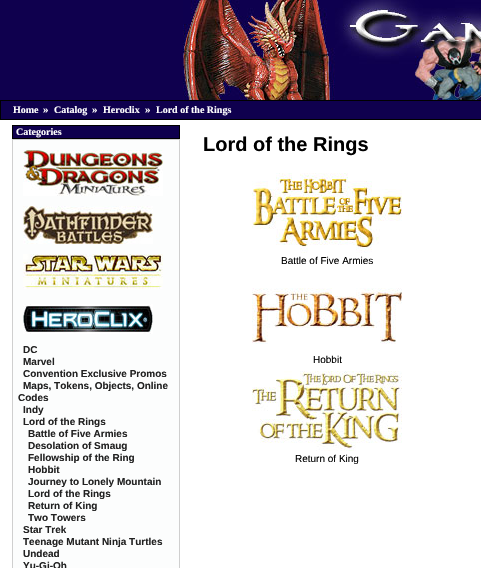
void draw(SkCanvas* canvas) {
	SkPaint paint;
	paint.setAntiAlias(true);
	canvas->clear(0xffffffff);
	paint.setColor(0xff0f004e);
	canvas->drawRect(SkRect::MakeXYWH(0, 0, 183, 100), paint);
	canvas->drawImageRect(SkImages::DeferredFromEncodedData(SkData::MakeFromFileName("img1.png")), SkRect::MakeXYWH(183, 0, 298, 100), SkSamplingOptions());
	canvas->drawRect(SkRect::MakeXYWH(0.5, 100.5, 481, 19), paint);
	paint.setStroke(true);
	paint.setStrokeWidth(1);
	paint.setColor(0xff000000);
	canvas->drawRect(SkRect::MakeXYWH(0.5, 100.5, 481, 19), paint);
	SkFont f1(fontMgr->matchFamilyStyle("Liberation Serif", SkFontStyle::Bold()), 10);
	f1.setSubpixel(true);
	paint.setStroke(false);
	paint.setColor(0xffffffff);
	canvas->drawString("Home", 13, 113, f1, paint);
	SkFont f2(fontMgr->matchFamilyStyle("Liberation Serif", SkFontStyle::Bold()), 11);
	f2.setSubpixel(true);
	canvas->drawString("»", 43, 113, f2, paint);
	canvas->drawString("Catalog", 54, 113, f1, paint);
	canvas->drawString("»", 92, 113, f2, paint);
	canvas->drawString("Heroclix", 103, 113, f1, paint);
	canvas->drawString("»", 145, 113, f2, paint);
	canvas->drawString("Lord of the Rings", 156, 113, f1, paint);
	paint.setColor(0xff0f004e);
	canvas->drawRect(SkRect::MakeXYWH(12.5, 125.5, 167, 13), paint);
	paint.setStroke(true);
	paint.setColor(0xff000000);
	canvas->drawRect(SkRect::MakeXYWH(12.5, 125.5, 167, 13), paint);
	paint.setStroke(false);
	paint.setColor(0xffffffff);
	canvas->drawString("Categories", 16, 135, f1, paint);
	paint.setColor(0xfffcfdfd);
	canvas->drawRect(SkRect::MakeXYWH(12.5, 139.5, 167, 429), paint);
	paint.setStroke(true);
	paint.setColor(0xffcfcfcf);
	canvas->drawRect(SkRect::MakeXYWH(12.5, 139.5, 167, 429), paint);
	canvas->drawImageRect(SkImages::DeferredFromEncodedData(SkData::MakeFromFileName("img2.png")), SkRect::MakeXYWH(23, 150, 140, 46), SkSamplingOptions());
	canvas->drawImageRect(SkImages::DeferredFromEncodedData(SkData::MakeFromFileName("img3.png")), SkRect::MakeXYWH(23, 206, 130, 38), SkSamplingOptions());
	canvas->drawImageRect(SkImages::DeferredFromEncodedData(SkData::MakeFromFileName("img4.png")), SkRect::MakeXYWH(23, 254, 140, 35), SkSamplingOptions());
	canvas->drawImageRect(SkImages::DeferredFromEncodedData(SkData::MakeFromFileName("img5.png")), SkRect::MakeXYWH(23, 304, 130, 30), SkSamplingOptions());
	SkFont f3(fontMgr->matchFamilyStyle("Liberation Sans", SkFontStyle::Bold()), 10);
	f3.setSubpixel(true);
	paint.setStroke(false);
	paint.setColor(0xff222222);
	canvas->drawString("DC", 23, 353, f3, paint);
	canvas->drawString("Marvel", 23, 365, f3, paint);
	canvas->drawString("Convention Exclusive Promos", 23, 377, f3, paint);
	canvas->drawString("Maps, Tokens, Objects, Online", 23, 389, f3, paint);
	canvas->drawString("Codes", 18, 401, f3, paint);
	canvas->drawString("Indy", 23, 413, f3, paint);
	canvas->drawString("Lord of the Rings", 23, 425, f3, paint);
	canvas->drawString("Battle of Five Armies", 28, 437, f3, paint);
	canvas->drawString("Desolation of Smaug", 28, 449, f3, paint);
	canvas->drawString("Fellowship of the Ring", 28, 461, f3, paint);
	canvas->drawString("Hobbit", 28, 473, f3, paint);
	canvas->drawString("Journey to Lonely Mountain", 28, 485, f3, paint);
	canvas->drawString("Lord of the Rings", 28, 497, f3, paint);
	canvas->drawString("Return of King", 28, 509, f3, paint);
	canvas->drawString("Two Towers", 28, 521, f3, paint);
	canvas->drawString("Star Trek", 23, 533, f3, paint);
	canvas->drawString("Teenage Mutant Ninja Turtles", 23, 545, f3, paint);
	canvas->drawString("Undead", 23, 557, f3, paint);
	canvas->drawString("Yu-Gi-Oh", 23, 569, f3, paint);
	SkFont f4(fontMgr->matchFamilyStyle("Liberation Sans", SkFontStyle::Bold()), 20);
	f4.setSubpixel(true);
	paint.setColor(0xff000000);
	canvas->drawString("Lord of the Rings", 203, 151, f4, paint);
	canvas->drawImageRect(SkImages::DeferredFromEncodedData(SkData::MakeFromFileName("img6.png")), SkRect::MakeXYWH(252, 173, 150, 80), SkSamplingOptions());
	SkFont f5(fontMgr->matchFamilyStyle("Liberation Sans", SkFontStyle::Normal()), 10);
	f5.setSubpixel(true);
	canvas->drawString("Battle of Five Armies", 281, 264, f5, paint);
	canvas->drawImageRect(SkImages::DeferredFromEncodedData(SkData::MakeFromFileName("img7.png")), SkRect::MakeXYWH(252, 288, 150, 56), SkSamplingOptions());
	canvas->drawString("Hobbit", 313, 363, f5, paint);
	canvas->drawImageRect(SkImages::DeferredFromEncodedData(SkData::MakeFromFileName("img8.png")), SkRect::MakeXYWH(252, 371, 150, 80), SkSamplingOptions());
	canvas->drawString("Return of King", 295, 462, f5, paint);
}
